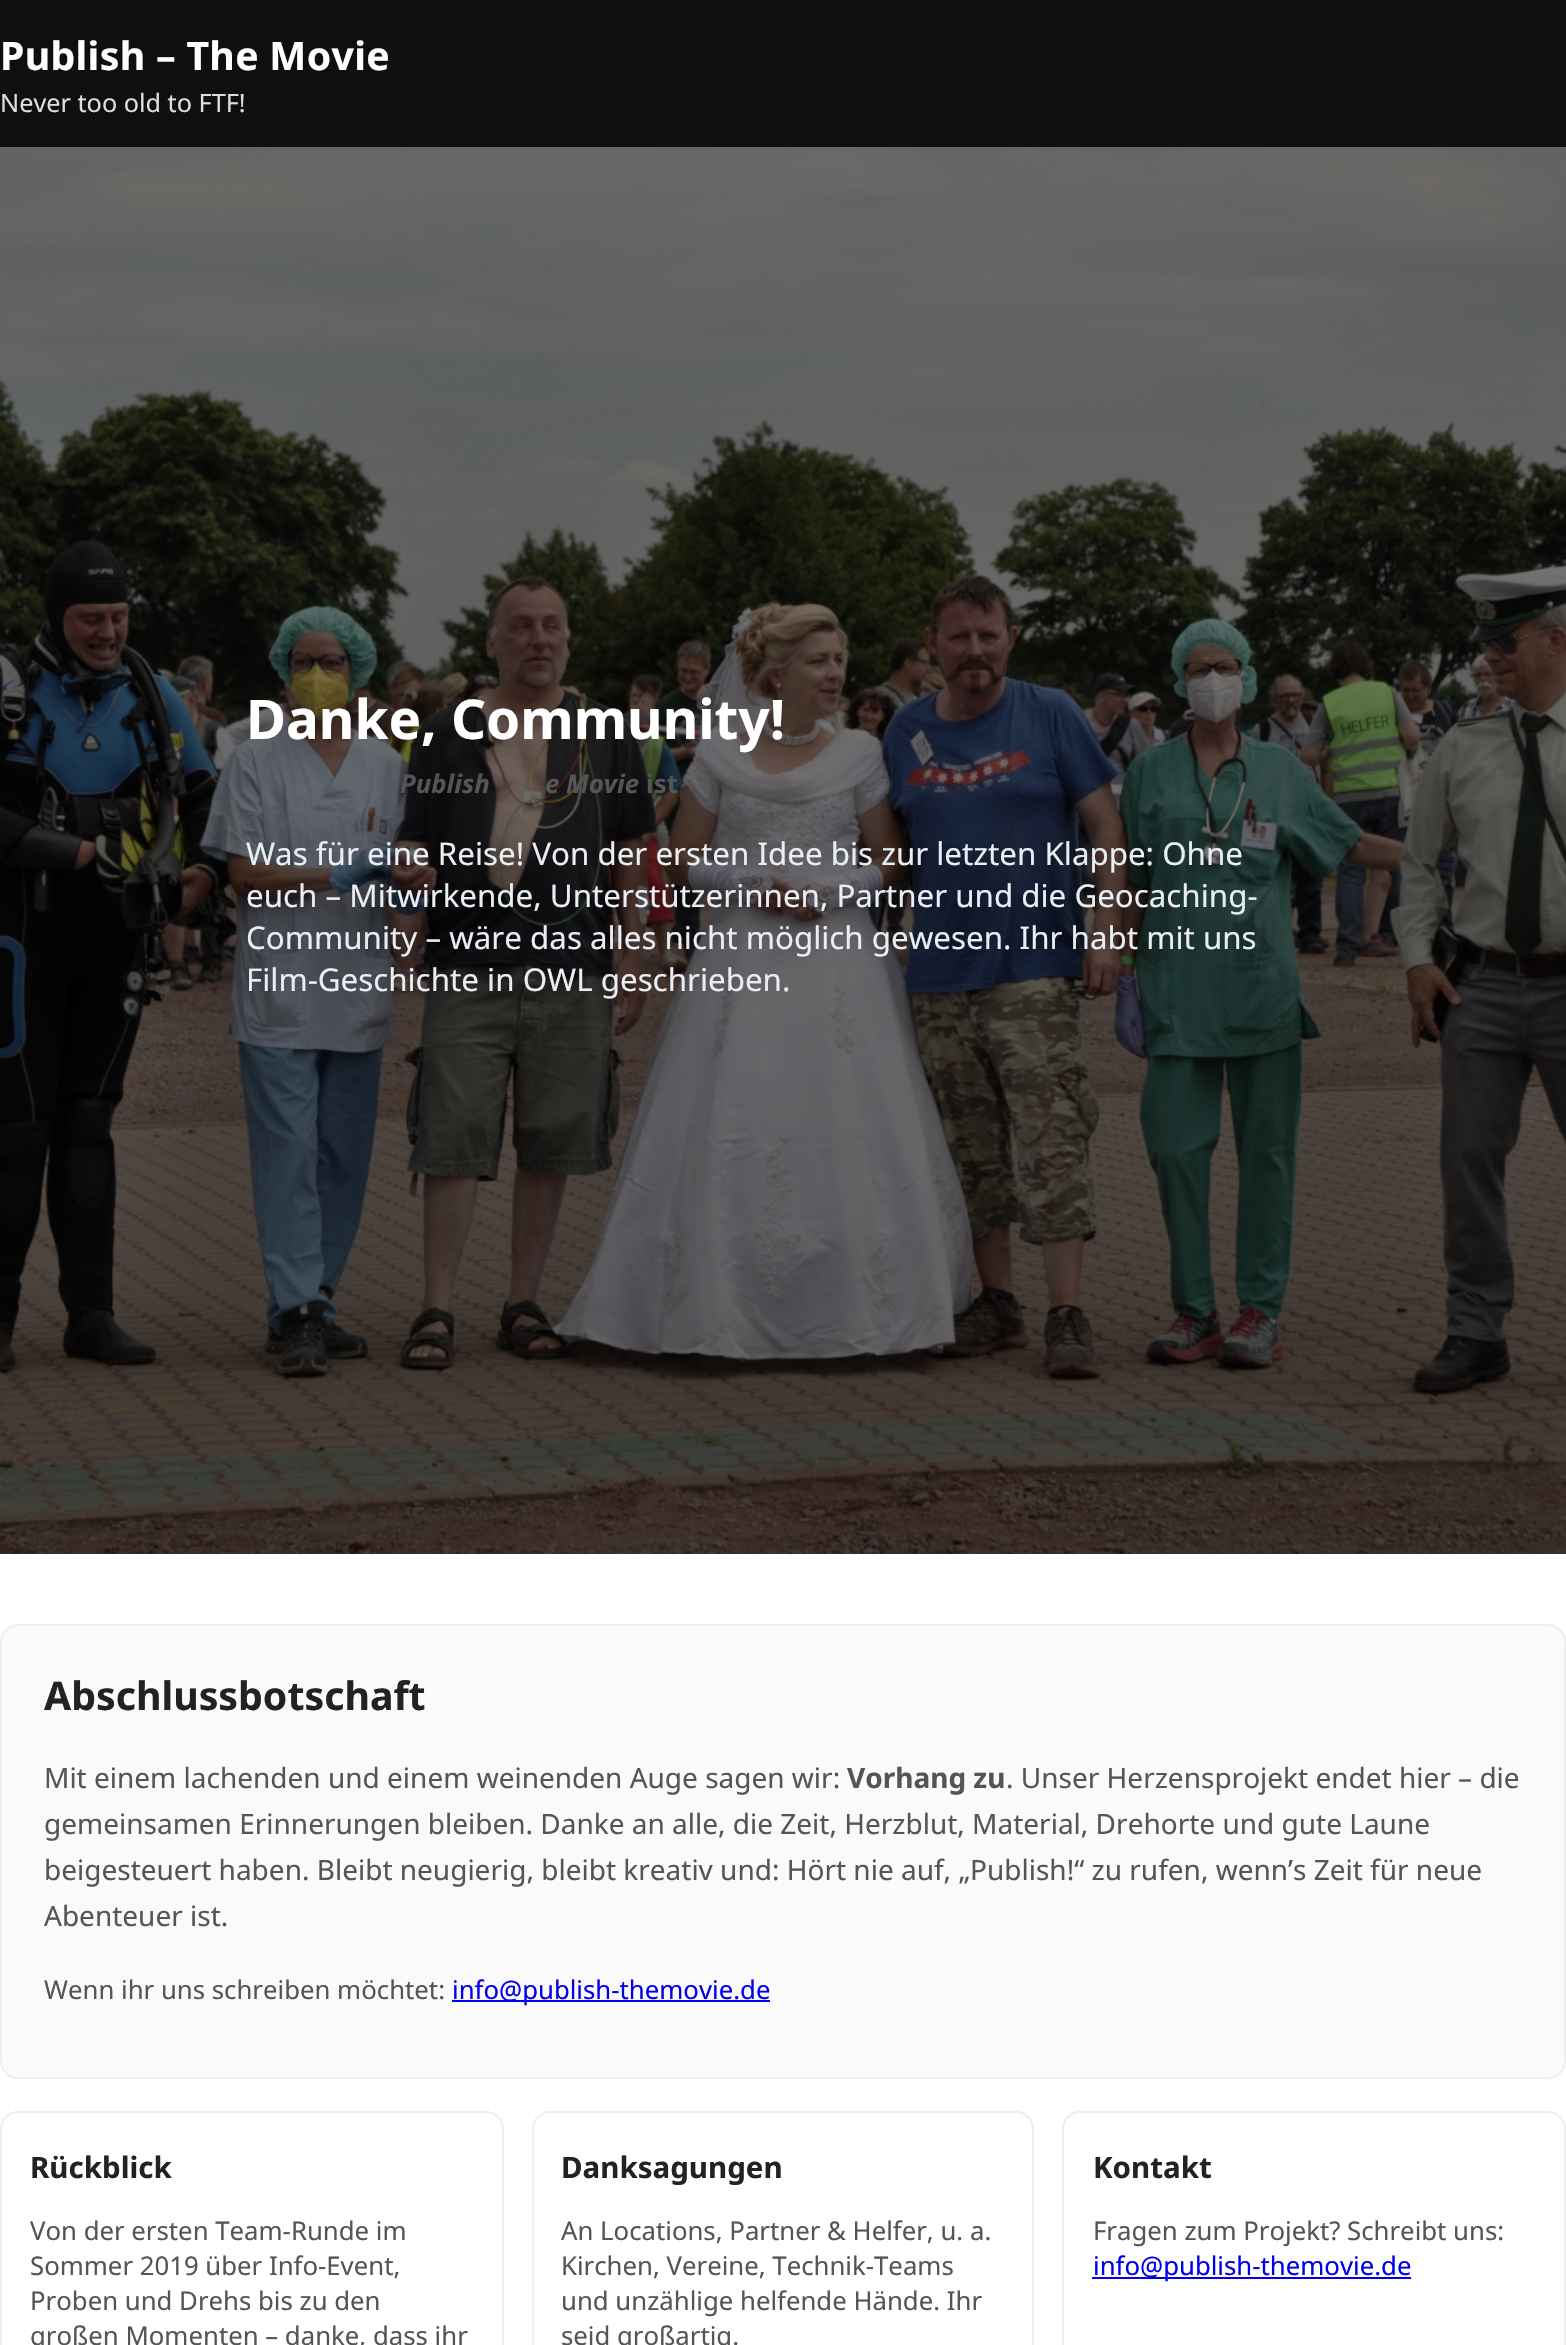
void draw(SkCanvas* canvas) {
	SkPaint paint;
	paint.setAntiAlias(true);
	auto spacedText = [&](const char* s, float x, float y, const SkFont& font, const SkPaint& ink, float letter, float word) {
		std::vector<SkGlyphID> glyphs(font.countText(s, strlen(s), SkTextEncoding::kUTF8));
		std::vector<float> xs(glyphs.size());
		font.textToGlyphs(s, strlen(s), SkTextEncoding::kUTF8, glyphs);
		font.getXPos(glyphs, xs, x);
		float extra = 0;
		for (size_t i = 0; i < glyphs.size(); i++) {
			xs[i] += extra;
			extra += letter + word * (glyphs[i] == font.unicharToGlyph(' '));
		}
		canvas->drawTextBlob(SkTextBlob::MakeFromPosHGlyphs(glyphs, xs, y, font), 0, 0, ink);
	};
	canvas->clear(0xffffffff);
	paint.setColor(0xff0f0f0f);
	canvas->drawRect(SkRect::MakeXYWH(0, 0, 1566, 147), paint);
	SkFont f1(fontMgr->matchFamilyStyle("Noto Sans", SkFontStyle::Bold()), 39.25);
	f1.setSubpixel(true);
	paint.setColor(0xffffffff);
	spacedText("Publish – The Movie", 0, 70, f1, paint, 0.3, 0);
	SkFont f2(fontMgr->matchFamilyStyle("Noto Sans", SkFontStyle::Normal()), 25.25);
	f2.setSubpixel(true);
	paint.setColor(0xffdddddd);
	canvas->drawString("Never too old to FTF!", 0, 112, f2, paint);
	canvas->drawImageRect(SkImages::DeferredFromEncodedData(SkData::MakeFromFileName("img1.png")), SkRect::MakeXYWH(0, 147, 1566, 1407), SkSamplingOptions());
	SkFont f3(fontMgr->matchFamilyStyle("Noto Sans", SkFontStyle::Bold()), 54.75);
	f3.setSubpixel(true);
	paint.setColor(0xffffffff);
	canvas->drawString("Danke, Community!", 246, 739, f3, paint);
	SkFont f4(fontMgr->matchFamilyStyle("Noto Sans", SkFontStyle::BoldItalic()), 25.75);
	f4.setSubpixel(true);
	paint.setColor(0xff555555);
	canvas->drawString("Publish", 400, 793, f4, paint);
	canvas->drawString("e Movie", 545, 793, f4, paint);
	SkFont f5(fontMgr->matchFamilyStyle("Noto Sans", SkFontStyle::Bold()), 25.75);
	f5.setSubpixel(true);
	canvas->drawString("ist", 646, 793, f5, paint);
	SkFont f6(fontMgr->matchFamilyStyle("Noto Sans", SkFontStyle::Normal()), 31.3);
	f6.setSubpixel(true);
	paint.setColor(0xffe9eef5);
	canvas->drawString("Was für eine Reise! Von der ersten Idee bis zur letzten Klappe: Ohne", 246, 865, f6, paint);
	canvas->drawString("euch – Mitwirkende, Unterstützerinnen, Partner und die Geocaching-", 246, 907, f6, paint);
	canvas->drawString("Community – wäre das alles nicht möglich gewesen. Ihr habt mit uns", 246, 949, f6, paint);
	canvas->drawString("Film-Geschichte in OWL geschrieben.", 246, 991, f6, paint);
	paint.setColor(0xfffafafa);
	canvas->drawRoundRect(SkRect::MakeXYWH(1, 1625, 1564, 453), 17, 17, paint);
	paint.setStroke(true);
	paint.setStrokeWidth(2);
	paint.setColor(0xffeeeeee);
	canvas->drawRoundRect(SkRect::MakeXYWH(1, 1625, 1564, 453), 17, 17, paint);
	paint.setStroke(false);
	paint.setColor(0xff222222);
	canvas->drawString("Abschlussbotschaft", 44, 1710, f1, paint);
	SkFont f7(fontMgr->matchFamilyStyle("Noto Sans", SkFontStyle::Normal()), 28);
	f7.setSubpixel(true);
	paint.setColor(0xff555555);
	canvas->drawString("Mit einem lachenden und einem weinenden Auge sagen wir:", 44, 1788, f7, paint);
	SkFont f8(fontMgr->matchFamilyStyle("Noto Sans", SkFontStyle::Bold()), 28);
	f8.setSubpixel(true);
	canvas->drawString("Vorhang zu", 847, 1788, f8, paint);
	canvas->drawString(". Unser Herzensprojekt endet hier – die", 1006, 1788, f7, paint);
	canvas->drawString("gemeinsamen Erinnerungen bleiben. Danke an alle, die Zeit, Herzblut, Material, Drehorte und gute Laune", 44, 1834, f7, paint);
	canvas->drawString("beigesteuert haben. Bleibt neugierig, bleibt kreativ und: Hört nie auf, „Publish!“ zu rufen, wenn’s Zeit für neue", 44, 1880, f7, paint);
	canvas->drawString("Abenteuer ist.", 44, 1926, f7, paint);
	SkFont f9(fontMgr->matchFamilyStyle("Noto Sans", SkFontStyle::Normal()), 25.75);
	f9.setSubpixel(true);
	canvas->drawString("Wenn ihr uns schreiben möchtet:", 44, 1999, f9, paint);
	paint.setColor(0xff0000ee);
	canvas->drawRect(SkRect::MakeXYWH(452, 2000, 318, 2), paint);
	canvas->drawString("info@publish-themovie.de", 452, 1999, f9, paint);
	paint.setStroke(true);
	paint.setColor(0xffeeeeee);
	canvas->drawRoundRect(SkRect::MakeXYWH(1, 2112, 502, 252), 17, 17, paint);
	SkFont f10(fontMgr->matchFamilyStyle("Noto Sans", SkFontStyle::Bold()), 29.5);
	f10.setSubpixel(true);
	paint.setStroke(false);
	paint.setColor(0xff222222);
	canvas->drawString("Rückblick", 30, 2178, f10, paint);
	paint.setColor(0xff555555);
	canvas->drawString("Von der ersten Team-Runde im", 30, 2240, f9, paint);
	canvas->drawString("Sommer 2019 über Info-Event,", 30, 2275, f9, paint);
	canvas->drawString("Proben und Drehs bis zu den", 30, 2310, f9, paint);
	canvas->drawString("großen Momenten – danke, dass ihr", 30, 2345, f9, paint);
	paint.setStroke(true);
	paint.setColor(0xffeeeeee);
	canvas->drawRoundRect(SkRect::MakeXYWH(533, 2112, 500, 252), 17, 17, paint);
	paint.setStroke(false);
	paint.setColor(0xff222222);
	canvas->drawString("Danksagungen", 561, 2178, f10, paint);
	paint.setColor(0xff555555);
	canvas->drawString("An Locations, Partner & Helfer, u. a.", 561, 2240, f9, paint);
	canvas->drawString("Kirchen, Vereine, Technik-Teams", 561, 2275, f9, paint);
	canvas->drawString("und unzählige helfende Hände. Ihr", 561, 2310, f9, paint);
	canvas->drawString("seid großartig.", 561, 2345, f9, paint);
	paint.setStroke(true);
	paint.setColor(0xffeeeeee);
	canvas->drawRoundRect(SkRect::MakeXYWH(1063, 2112, 502, 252), 17, 17, paint);
	paint.setStroke(false);
	paint.setColor(0xff222222);
	canvas->drawString("Kontakt", 1093, 2178, f10, paint);
	paint.setColor(0xff555555);
	canvas->drawString("Fragen zum Projekt? Schreibt uns:", 1093, 2240, f9, paint);
	paint.setColor(0xff0000ee);
	canvas->drawRect(SkRect::MakeXYWH(1092, 2277, 319, 2), paint);
	canvas->drawString("info@publish-themovie.de", 1093, 2275, f9, paint);
}
